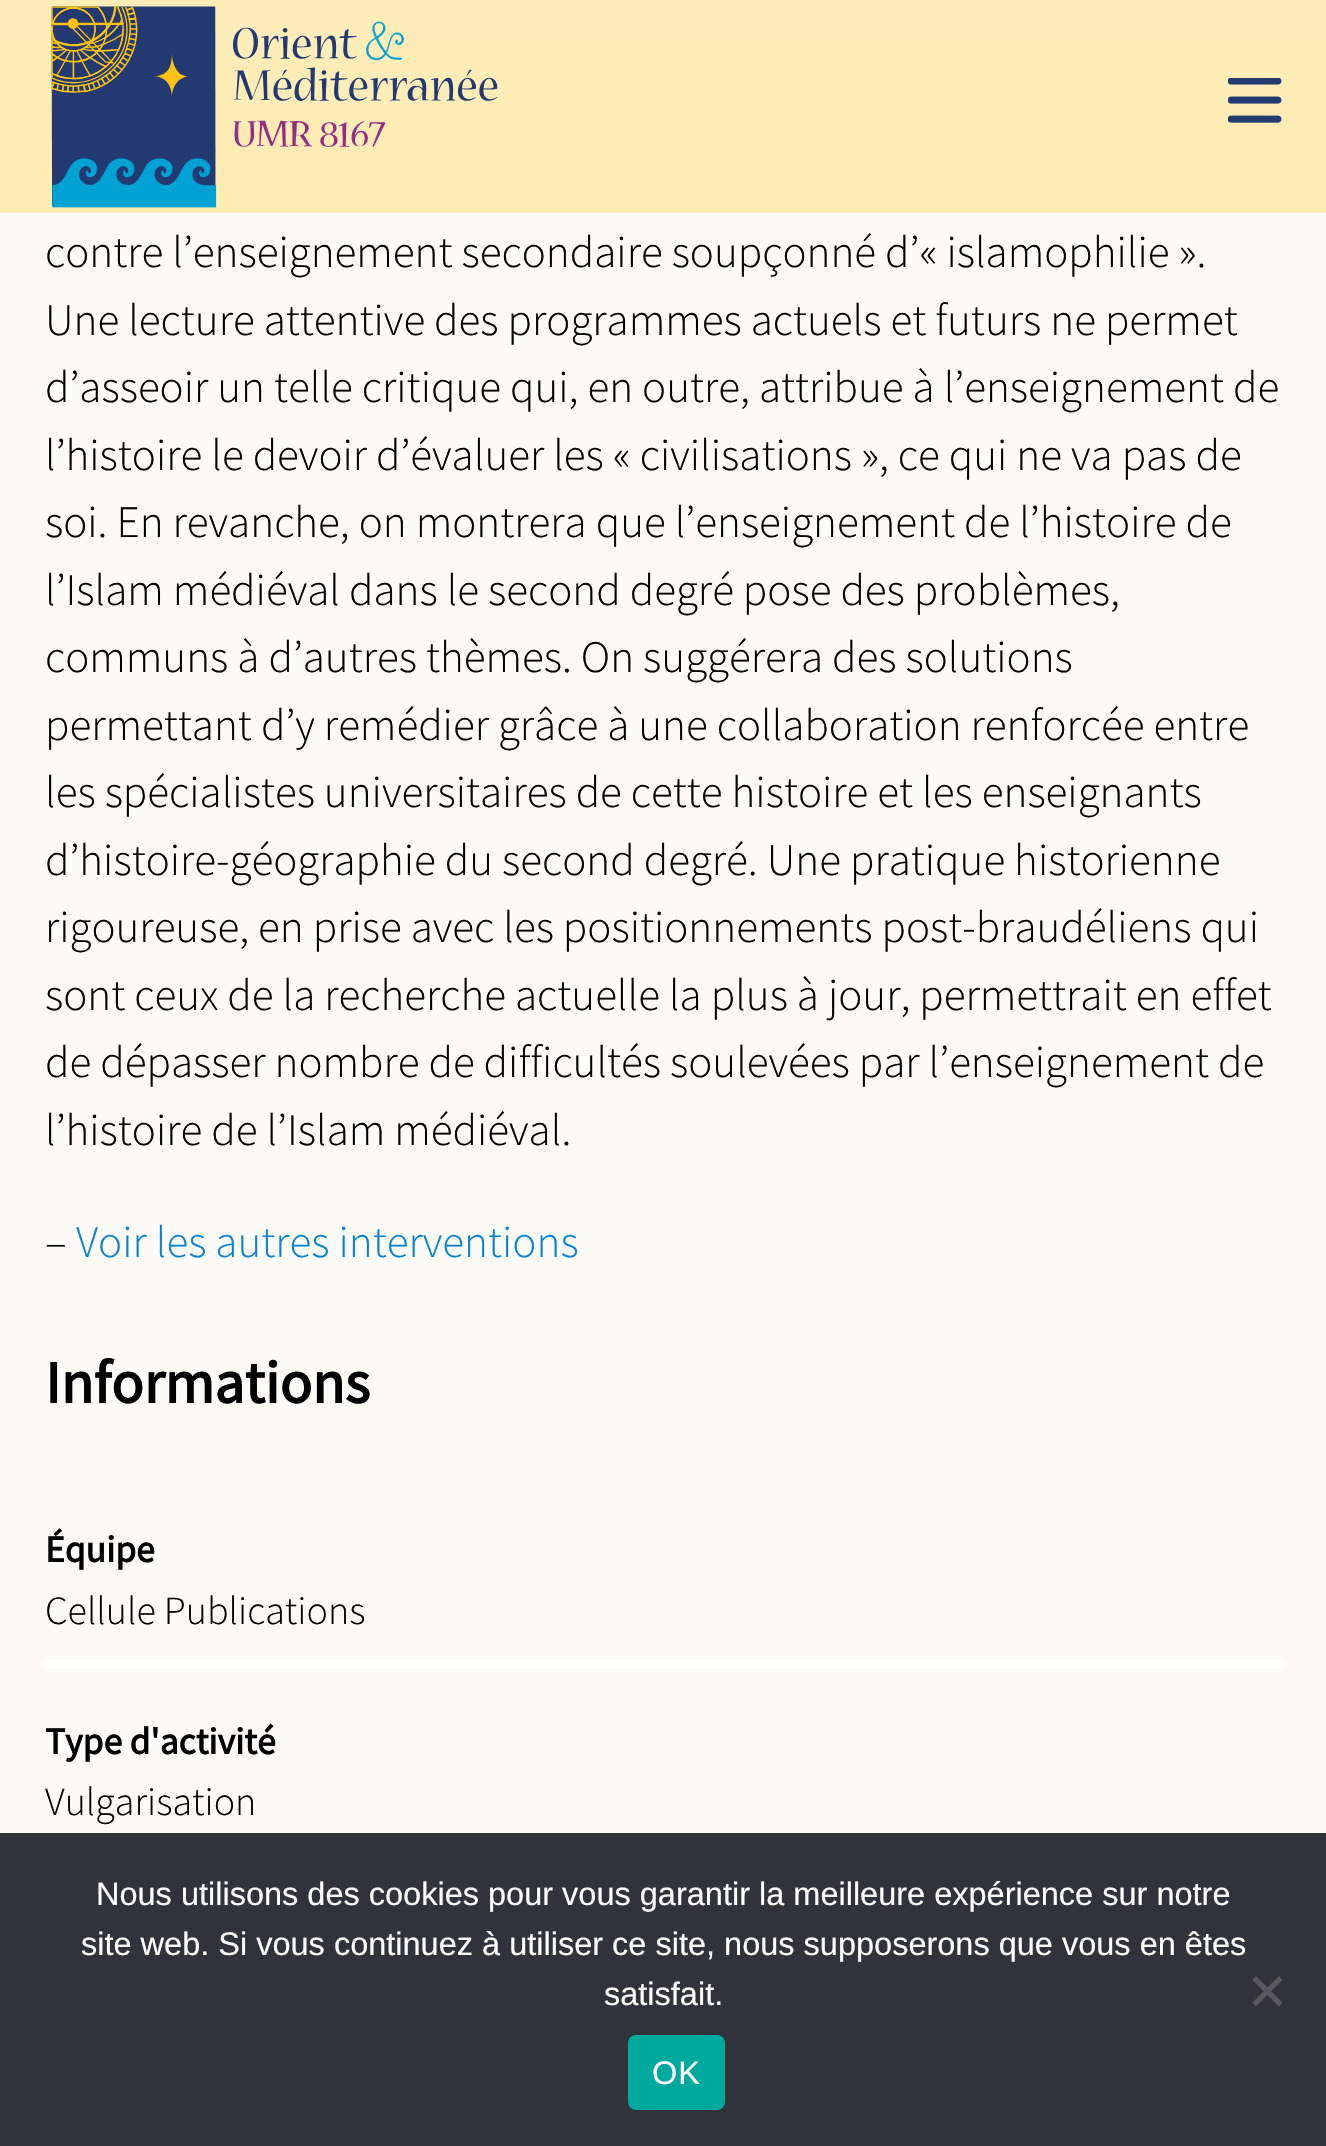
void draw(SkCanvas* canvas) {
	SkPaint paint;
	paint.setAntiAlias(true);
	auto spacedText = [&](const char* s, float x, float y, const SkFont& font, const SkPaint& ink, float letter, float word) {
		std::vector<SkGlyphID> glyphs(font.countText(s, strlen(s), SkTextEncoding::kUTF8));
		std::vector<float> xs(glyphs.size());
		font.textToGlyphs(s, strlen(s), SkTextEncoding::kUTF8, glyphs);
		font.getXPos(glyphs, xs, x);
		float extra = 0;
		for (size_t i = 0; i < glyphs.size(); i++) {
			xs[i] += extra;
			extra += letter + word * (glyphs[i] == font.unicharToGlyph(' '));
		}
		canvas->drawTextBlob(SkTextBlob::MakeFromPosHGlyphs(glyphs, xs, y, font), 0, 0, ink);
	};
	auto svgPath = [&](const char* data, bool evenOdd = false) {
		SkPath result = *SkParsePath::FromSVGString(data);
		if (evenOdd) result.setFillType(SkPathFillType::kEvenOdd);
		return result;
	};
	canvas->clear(0xfffdfbf7);
	{
		const SkColor colors[] = {0xfffeedb9, 0xffffecb2};
		const float stops[] = {0, 1};
		const SkPoint ends[] = {{664, 0}, {664, 213}};
		paint.setShader(SkGradientShader::MakeLinear(ends, colors, stops, 2, SkTileMode::kClamp));
		paint.setAlpha(255);
	}
	canvas->drawRect(SkRect::MakeXYWH(0, 0, 1326, 213), paint);
	canvas->drawImageRect(SkImages::DeferredFromEncodedData(SkData::MakeFromFileName("img1.png")), SkRect::MakeXYWH(50, 5, 448, 203), SkSamplingOptions());
	canvas->drawImageRect(SkImages::DeferredFromEncodedData(SkData::MakeFromFileName("img2.png")), SkRect::MakeXYWH(1228, 78, 54, 45), SkSamplingOptions());
	SkFont f1(fontMgr->matchFamilyStyle("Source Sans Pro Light", SkFontStyle(300, SkFontStyle::kNormal_Width, SkFontStyle::kUpright_Slant)), 45);
	f1.setSubpixel(true);
	paint.setShader(nullptr);
	paint.setColor(0xff000000);
	canvas->drawString("contre l’enseignement secondaire soupçonné d’« islamophilie ».", 45, 267, f1, paint);
	canvas->drawString("Une lecture attentive des programmes actuels et futurs ne permet", 45, 335, f1, paint);
	canvas->drawString("d’asseoir un telle critique qui, en outre, attribue à l’enseignement de", 45, 402, f1, paint);
	canvas->drawString("l’histoire le devoir d’évaluer les « civilisations », ce qui ne va pas de", 45, 470, f1, paint);
	canvas->drawString("soi. En revanche, on montrera que l’enseignement de l’histoire de", 45, 537, f1, paint);
	canvas->drawString("l’Islam médiéval dans le second degré pose des problèmes,", 45, 605, f1, paint);
	canvas->drawString("communs à d’autres thèmes. On suggérera des solutions", 45, 672, f1, paint);
	canvas->drawString("permettant d’y remédier grâce à une collaboration renforcée entre", 45, 740, f1, paint);
	canvas->drawString("les spécialistes universitaires de cette histoire et les enseignants", 45, 807, f1, paint);
	canvas->drawString("d’histoire-géographie du second degré. Une pratique historienne", 45, 875, f1, paint);
	canvas->drawString("rigoureuse, en prise avec les positionnements post-braudéliens qui", 45, 942, f1, paint);
	canvas->drawString("sont ceux de la recherche actuelle la plus à jour, permettrait en effet", 45, 1010, f1, paint);
	canvas->drawString("de dépasser nombre de difficultés soulevées par l’enseignement de", 45, 1077, f1, paint);
	canvas->drawString("l’histoire de l’Islam médiéval.", 45, 1145, f1, paint);
	canvas->drawString("–", 45, 1257, f1, paint);
	paint.setColor(0xff0782d6);
	canvas->drawString("Voir les autres interventions", 76, 1257, f1, paint);
	SkFont f2(fontMgr->matchFamilyStyle("Source Sans Pro", SkFontStyle::Bold()), 60);
	f2.setSubpixel(true);
	paint.setColor(0xff000000);
	canvas->drawString("Informations", 45, 1403, f2, paint);
	paint.setColor(0xffffffff);
	canvas->drawRect(SkRect::MakeXYWH(45, 1660, 1238, 8), paint);
	SkFont f3(fontMgr->matchFamilyStyle("Source Sans Pro", SkFontStyle::Bold()), 37.5);
	f3.setSubpixel(true);
	paint.setColor(0xff000000);
	canvas->drawString("Équipe", 45, 1562, f3, paint);
	SkFont f4(fontMgr->matchFamilyStyle("Source Sans Pro Light", SkFontStyle(300, SkFontStyle::kNormal_Width, SkFontStyle::kUpright_Slant)), 40);
	f4.setSubpixel(true);
	canvas->drawString("Cellule Publications", 45, 1624, f4, paint);
	canvas->drawString("Type d'activité", 45, 1754, f3, paint);
	canvas->drawString("Vulgarisation", 45, 1815, f4, paint);
	paint.setColor(0xff32323a);
	canvas->drawRect(SkRect::MakeXYWH(0, 1833, 1326, 313), paint);
	SkFont f5(fontMgr->matchFamilyStyle("Liberation Sans", SkFontStyle::Normal()), 32.5);
	f5.setSubpixel(true);
	paint.setColor(0xffffffff);
	canvas->drawString("Nous utilisons des cookies pour vous garantir la meilleure expérience sur notre", 96, 1905, f5, paint);
	canvas->drawString("site web. Si vous continuez à utiliser ce site, nous supposerons que vous en êtes", 81, 1955, f5, paint);
	canvas->drawString("satisfait.", 604, 2005, f5, paint);
	paint.setColor(0xff59595d);
	canvas->drawPath(svgPath("M1279 1976L1282.5 1980L1256 2006.5L1252.5 2002.5Z"), paint);
	canvas->drawPath(svgPath("M1252.5 1980L1256 1976L1282.5 2002.5L1279 2006.5Z"), paint);
	paint.setColor(0xff00a99d);
	canvas->drawRoundRect(SkRect::MakeXYWH(628, 2035, 97, 75), 8, 8, paint);
	paint.setColor(0xffffffff);
	spacedText("OK", 652, 2084, f5, paint, 1, 0);
}
